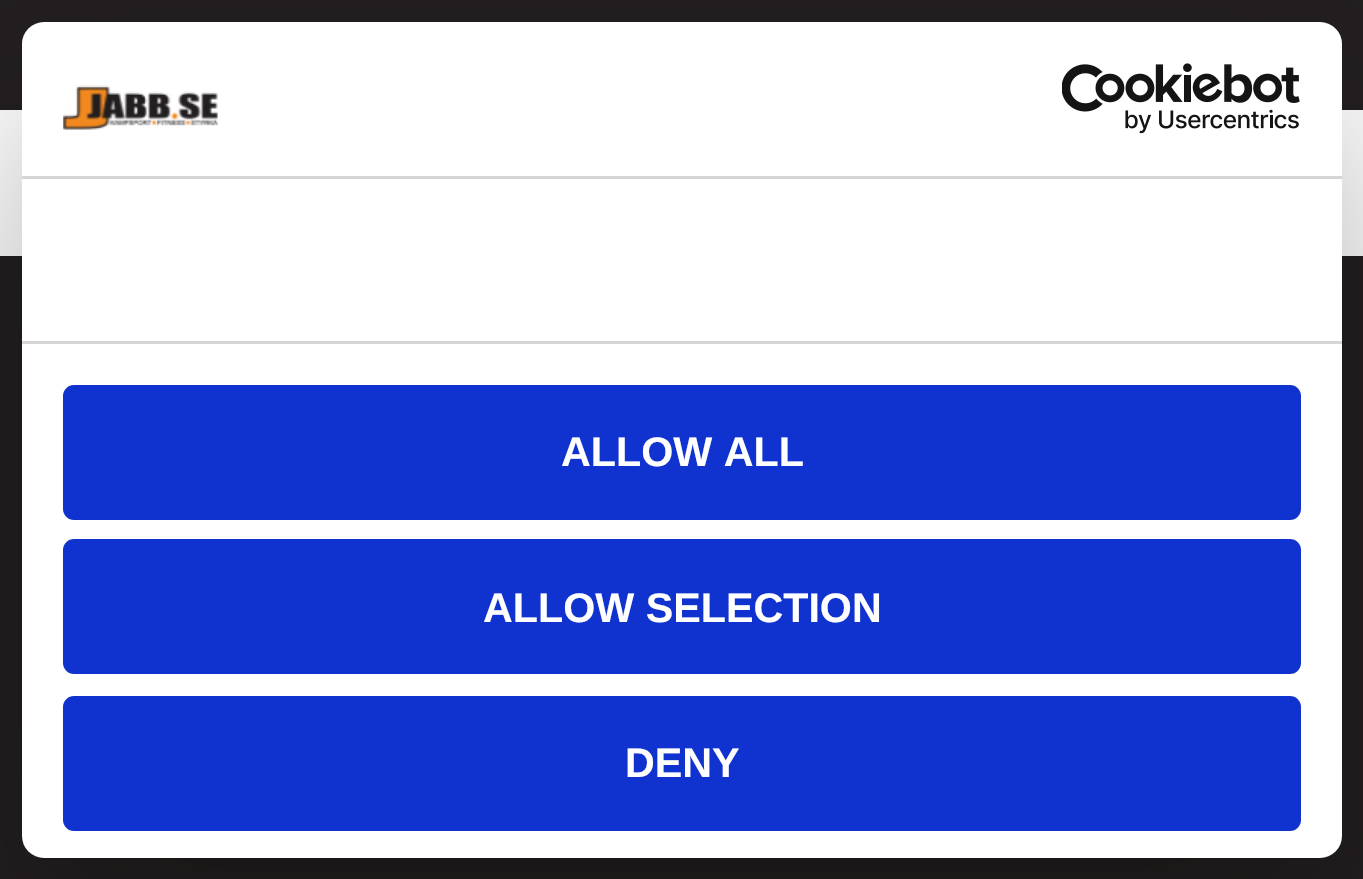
void draw(SkCanvas* canvas) {
	SkPaint paint;
	paint.setAntiAlias(true);
	canvas->clear(0xff231f20);
	paint.setColor(0xffffffff);
	canvas->drawRect(SkRect::MakeXYWH(0, 110, 1363, 146), paint);
	paint.setColor(0x4d000000);
	paint.setMaskFilter(SkMaskFilter::MakeBlur(kNormal_SkBlurStyle, 93.5));
	canvas->drawRoundRect(SkRect::MakeXYWH(22, 110, 1320, 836), 22, 22, paint);
	paint.setMaskFilter(nullptr);
	paint.setColor(0xffffffff);
	canvas->drawRoundRect(SkRect::MakeXYWH(22, 22, 1320, 836), 22, 22, paint);
	paint.setColor(0xffd6d6d6);
	canvas->drawRect(SkRect::MakeXYWH(22, 176, 1320, 3), paint);
	canvas->drawImageRect(SkImages::DeferredFromEncodedData(SkData::MakeFromFileName("img1.png")), SkRect::MakeXYWH(63, 85, 155, 45), SkSamplingOptions());
	canvas->drawImageRect(SkImages::DeferredFromEncodedData(SkData::MakeFromFileName("img2.png")), SkRect::MakeXYWH(1062, 63, 238, 71), SkSamplingOptions());
	canvas->drawRect(SkRect::MakeXYWH(22, 341, 1320, 3), paint);
	paint.setColor(0xff1032cf);
	canvas->drawRoundRect(SkRect::MakeXYWH(66, 388, 1232, 129), 8, 8, paint);
	paint.setStroke(true);
	paint.setStrokeWidth(6);
	canvas->drawRoundRect(SkRect::MakeXYWH(66, 388, 1232, 129), 8, 8, paint);
	SkFont f1(fontMgr->matchFamilyStyle("Liberation Sans", SkFontStyle::Bold()), 41.25);
	f1.setSubpixel(true);
	paint.setStroke(false);
	paint.setColor(0xffffffff);
	canvas->drawString("ALLOW ALL", 561, 466, f1, paint);
	paint.setColor(0xff1032cf);
	canvas->drawRoundRect(SkRect::MakeXYWH(66, 542, 1232, 129), 8, 8, paint);
	paint.setStroke(true);
	canvas->drawRoundRect(SkRect::MakeXYWH(66, 542, 1232, 129), 8, 8, paint);
	paint.setStroke(false);
	paint.setColor(0xffffffff);
	canvas->drawString("ALLOW SELECTION", 483, 622, f1, paint);
	paint.setColor(0xff1032cf);
	canvas->drawRoundRect(SkRect::MakeXYWH(66, 699, 1232, 129), 8, 8, paint);
	paint.setStroke(true);
	canvas->drawRoundRect(SkRect::MakeXYWH(66, 699, 1232, 129), 8, 8, paint);
	paint.setStroke(false);
	paint.setColor(0xffffffff);
	canvas->drawString("DENY", 625, 777, f1, paint);
}
